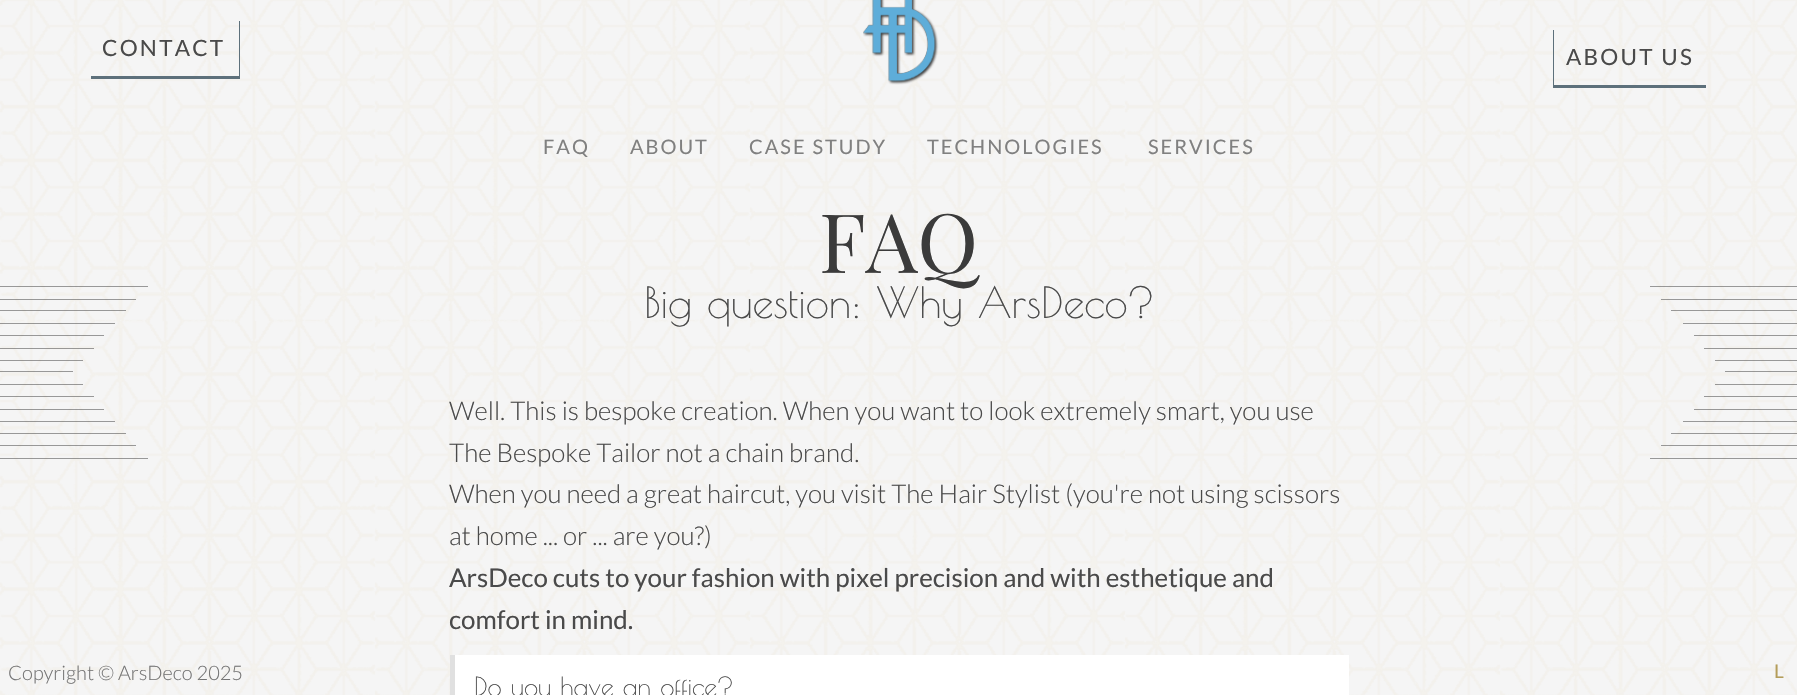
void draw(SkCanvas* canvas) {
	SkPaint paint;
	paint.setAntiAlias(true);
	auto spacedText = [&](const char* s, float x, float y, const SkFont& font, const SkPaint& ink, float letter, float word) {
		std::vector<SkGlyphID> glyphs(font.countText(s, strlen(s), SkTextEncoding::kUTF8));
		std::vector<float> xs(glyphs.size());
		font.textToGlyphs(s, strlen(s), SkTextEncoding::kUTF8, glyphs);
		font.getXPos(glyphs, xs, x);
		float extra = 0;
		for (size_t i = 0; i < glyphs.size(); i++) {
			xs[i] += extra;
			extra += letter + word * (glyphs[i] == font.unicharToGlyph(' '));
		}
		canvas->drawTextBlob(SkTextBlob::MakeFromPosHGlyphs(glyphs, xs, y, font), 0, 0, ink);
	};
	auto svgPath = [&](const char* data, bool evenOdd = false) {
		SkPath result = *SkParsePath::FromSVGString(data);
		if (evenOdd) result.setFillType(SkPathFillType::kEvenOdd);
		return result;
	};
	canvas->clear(0xfff5f5f5);
	canvas->drawImageRect(SkImages::DeferredFromEncodedData(SkData::MakeFromFileName("img1.png")), SkRect::MakeXYWH(0, 0, 1797, 695), SkSamplingOptions());
	paint.setColor(0xff5d707b);
	canvas->drawPath(svgPath("M91 76V79H240V21H239V76Z"), paint);
	SkFont f1(fontMgr->matchFamilyStyle("Lato", SkFontStyle::Normal()), 22.5);
	f1.setSubpixel(true);
	paint.setColor(0xff4a4a4a);
	spacedText("CONTACT", 102, 56, f1, paint, 2.25, 0);
	canvas->drawImageRect(SkImages::DeferredFromEncodedData(SkData::MakeFromFileName("img2.png")), SkRect::MakeXYWH(863, 0, 76, 85), SkSamplingOptions());
	paint.setColor(0xff5d707b);
	canvas->drawPath(svgPath("M1553 30V88H1706V85H1554V30Z"), paint);
	paint.setColor(0xff4a4a4a);
	spacedText("ABOUT US", 1566, 65, f1, paint, 2.25, 0);
	SkFont f2(fontMgr->matchFamilyStyle("Lato", SkFontStyle::Normal()), 20);
	f2.setSubpixel(true);
	paint.setColor(0xff808080);
	spacedText("FAQ", 543, 154, f2, paint, 2, 0);
	spacedText("ABOUT", 630, 154, f2, paint, 2, 0);
	spacedText("CASE STUDY", 749, 154, f2, paint, 2, 0);
	spacedText("TECHNOLOGIES", 927, 154, f2, paint, 2, 0);
	spacedText("SERVICES", 1148, 154, f2, paint, 2, 0);
	paint.setColor(0x803b3b3b);
	canvas->drawRect(SkRect::MakeXYWH(0, 286, 148, 1), paint);
	canvas->drawRect(SkRect::MakeXYWH(0, 299, 136, 1), paint);
	canvas->drawRect(SkRect::MakeXYWH(0, 310, 126, 1), paint);
	canvas->drawRect(SkRect::MakeXYWH(0, 323, 115, 1), paint);
	canvas->drawRect(SkRect::MakeXYWH(0, 335, 104, 1), paint);
	canvas->drawRect(SkRect::MakeXYWH(0, 348, 94, 1), paint);
	canvas->drawRect(SkRect::MakeXYWH(0, 360, 83, 1), paint);
	canvas->drawRect(SkRect::MakeXYWH(0, 371, 73, 1), paint);
	canvas->drawRect(SkRect::MakeXYWH(0, 384, 83, 1), paint);
	canvas->drawRect(SkRect::MakeXYWH(0, 396, 94, 1), paint);
	canvas->drawRect(SkRect::MakeXYWH(0, 409, 104, 1), paint);
	canvas->drawRect(SkRect::MakeXYWH(0, 421, 115, 1), paint);
	canvas->drawRect(SkRect::MakeXYWH(0, 433, 126, 1), paint);
	canvas->drawRect(SkRect::MakeXYWH(0, 445, 136, 1), paint);
	canvas->drawRect(SkRect::MakeXYWH(0, 458, 148, 1), paint);
	canvas->drawRect(SkRect::MakeXYWH(1650, 286, 147, 1), paint);
	canvas->drawRect(SkRect::MakeXYWH(1661, 299, 136, 1), paint);
	canvas->drawRect(SkRect::MakeXYWH(1671, 310, 126, 1), paint);
	canvas->drawRect(SkRect::MakeXYWH(1683, 323, 114, 1), paint);
	canvas->drawRect(SkRect::MakeXYWH(1694, 335, 103, 1), paint);
	canvas->drawRect(SkRect::MakeXYWH(1704, 348, 93, 1), paint);
	canvas->drawRect(SkRect::MakeXYWH(1715, 360, 82, 1), paint);
	canvas->drawRect(SkRect::MakeXYWH(1725, 371, 72, 1), paint);
	canvas->drawRect(SkRect::MakeXYWH(1715, 384, 82, 1), paint);
	canvas->drawRect(SkRect::MakeXYWH(1704, 396, 93, 1), paint);
	canvas->drawRect(SkRect::MakeXYWH(1694, 409, 103, 1), paint);
	canvas->drawRect(SkRect::MakeXYWH(1683, 421, 114, 1), paint);
	canvas->drawRect(SkRect::MakeXYWH(1671, 433, 126, 1), paint);
	canvas->drawRect(SkRect::MakeXYWH(1661, 445, 136, 1), paint);
	canvas->drawRect(SkRect::MakeXYWH(1650, 458, 147, 1), paint);
	SkFont f3(fontMgr->matchFamilyStyle("Playfair Display", SkFontStyle::Normal()), 82);
	f3.setSubpixel(true);
	paint.setColor(0xff3b3b3b);
	canvas->drawString("FAQ", 819, 273, f3, paint);
	SkFont f4(fontMgr->matchFamilyStyle("Poiret One", SkFontStyle::Normal()), 42.4);
	f4.setSubpixel(true);
	paint.setColor(0xff4a4a4a);
	canvas->drawString("Big question: Why ArsDeco?", 644, 318, f4, paint);
	SkFont f5(fontMgr->matchFamilyStyle("Lato", SkFontStyle(300, SkFontStyle::kNormal_Width, SkFontStyle::kUpright_Slant)), 25.9);
	f5.setSubpixel(true);
	canvas->drawString("Well. This is bespoke creation. When you want to look extremely smart, you use", 449, 420, f5, paint);
	canvas->drawString("The Bespoke Tailor not a chain brand.", 449, 462, f5, paint);
	canvas->drawString("When you need a great haircut, you visit The Hair Stylist (you're not using scissors", 449, 503, f5, paint);
	canvas->drawString("at home ... or ... are you?)", 449, 545, f5, paint);
	SkFont f6(fontMgr->matchFamilyStyle("Lato", SkFontStyle::Normal()), 25.9);
	f6.setSubpixel(true);
	canvas->drawString("ArsDeco cuts to your fashion with pixel precision and with esthetique and", 449, 587, f6, paint);
	canvas->drawString("comfort in mind.", 449, 629, f6, paint);
	paint.setColor(0xffffffff);
	canvas->drawRect(SkRect::MakeXYWH(455, 655, 894, 40), paint);
	paint.setColor(0xffe0e0e0);
	canvas->drawRect(SkRect::MakeXYWH(450, 655, 5, 40), paint);
	SkFont f7(fontMgr->matchFamilyStyle("Poiret One", SkFontStyle::Normal()), 25.9);
	f7.setSubpixel(true);
	paint.setColor(0xff4a4a4a);
	canvas->drawString("Do you have an office?", 474, 696, f7, paint);
	SkFont f8(fontMgr->matchFamilyStyle("Lato", SkFontStyle(300, SkFontStyle::kNormal_Width, SkFontStyle::kUpright_Slant)), 20);
	f8.setSubpixel(true);
	paint.setColor(0xff747474);
	canvas->drawString("Copyright © ArsDeco 2025", 8, 680, f8, paint);
	SkFont f9(fontMgr->matchFamilyStyle("Lato", SkFontStyle::Normal()), 19);
	f9.setSubpixel(true);
	paint.setColor(0xffb49d5a);
	canvas->drawString("L", 1774, 678, f9, paint);
}
